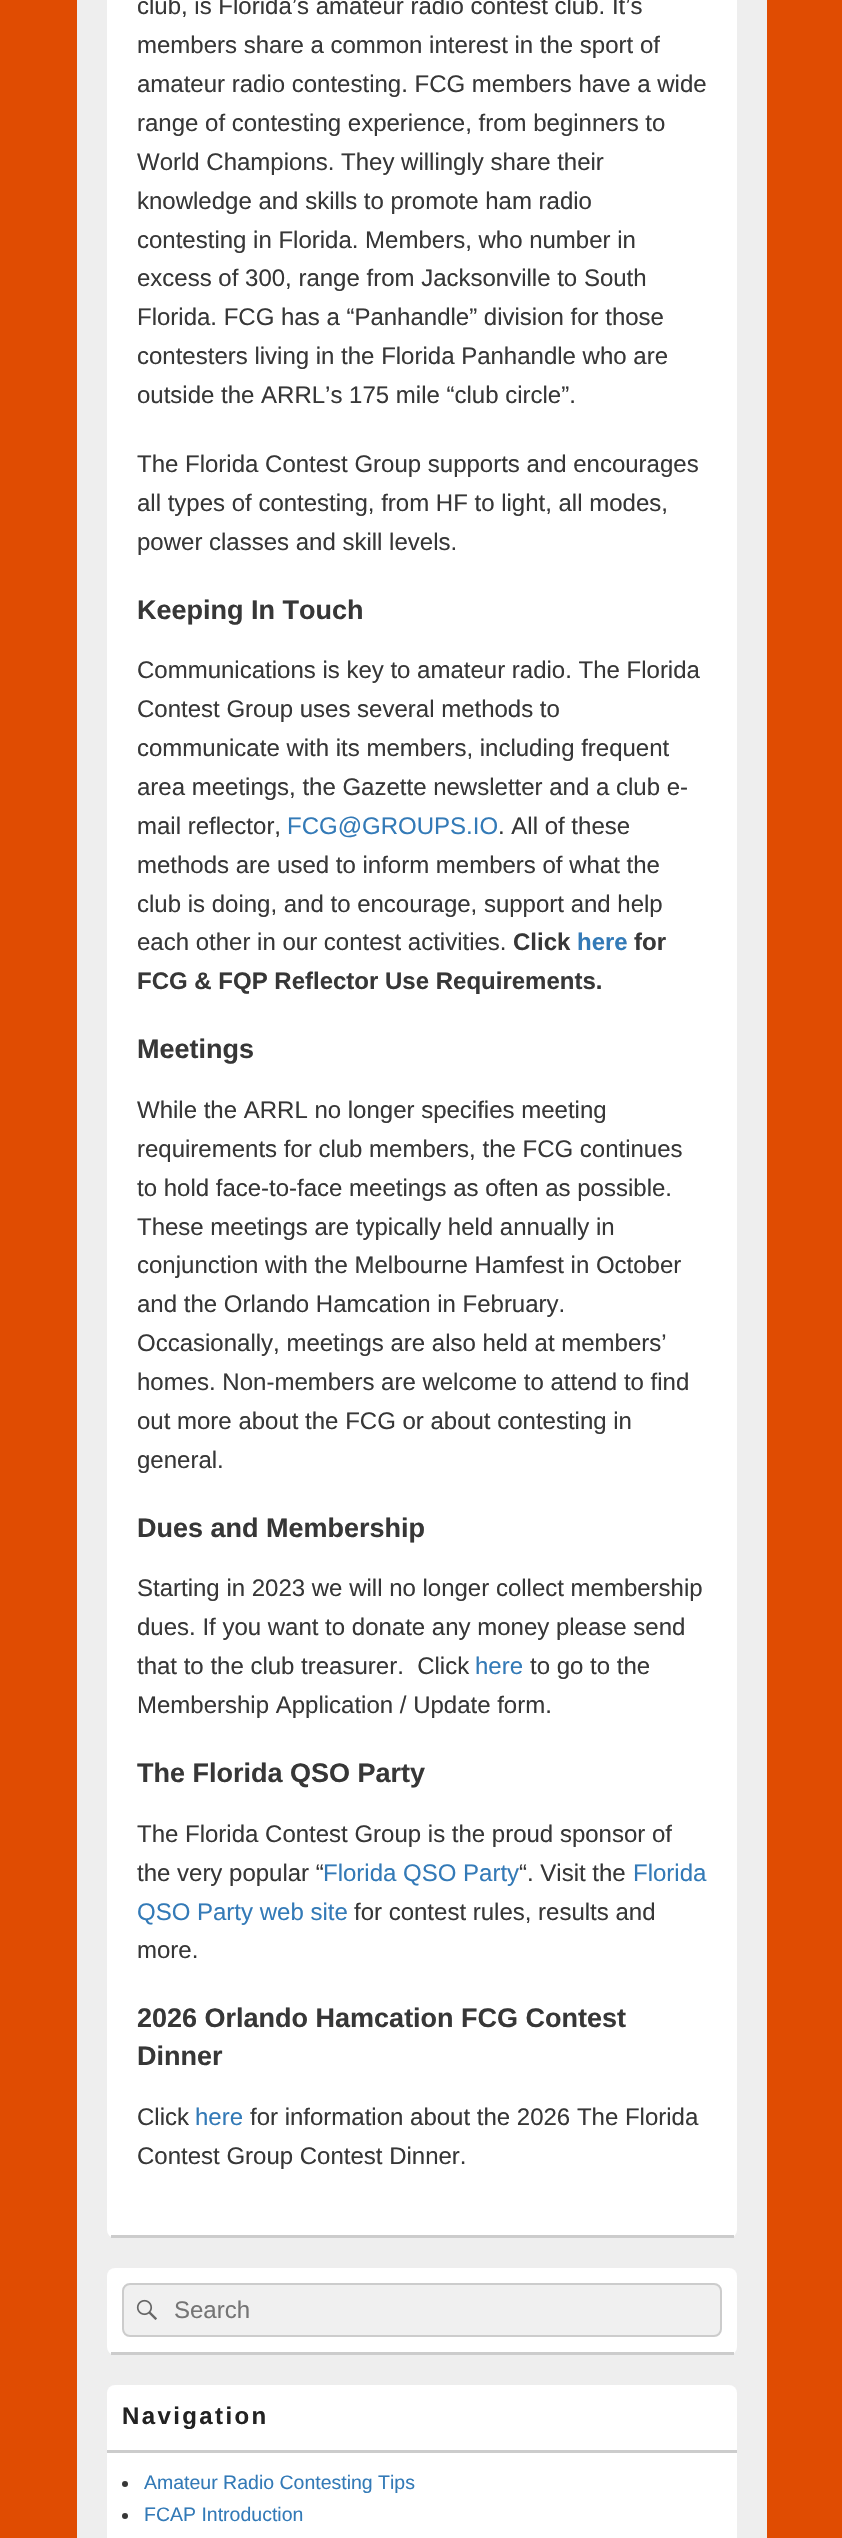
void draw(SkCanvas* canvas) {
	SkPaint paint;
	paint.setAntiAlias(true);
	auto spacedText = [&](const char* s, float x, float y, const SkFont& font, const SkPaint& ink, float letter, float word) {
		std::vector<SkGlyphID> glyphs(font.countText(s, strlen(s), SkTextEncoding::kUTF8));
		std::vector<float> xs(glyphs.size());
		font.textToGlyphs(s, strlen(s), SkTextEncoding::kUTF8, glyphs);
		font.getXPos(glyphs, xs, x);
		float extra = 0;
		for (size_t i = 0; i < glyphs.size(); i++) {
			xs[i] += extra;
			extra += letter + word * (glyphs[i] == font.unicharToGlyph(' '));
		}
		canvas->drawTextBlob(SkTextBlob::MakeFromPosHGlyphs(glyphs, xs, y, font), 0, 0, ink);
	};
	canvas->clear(0xffe04c02);
	paint.setColor(0xffeeeeee);
	canvas->drawRect(SkRect::MakeXYWH(77, 0, 690, 2538), paint);
	paint.setColor(0xffffffff);
	canvas->drawRoundRect(SkRect::MakeXYWH(107, -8, 630, 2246), 8, 8, paint);
	paint.setColor(0xffcccccc);
	canvas->drawRect(SkRect::MakeXYWH(111, 2235, 623, 3), paint);
	SkFont f1(fontMgr->matchFamilyStyle("Liberation Sans", SkFontStyle::Normal()), 24);
	f1.setSubpixel(true);
	paint.setColor(0xff373737);
	canvas->drawString("club, is Florida’s amateur radio contest club. It’s", 137, 14, f1, paint);
	canvas->drawString("members share a common interest in the sport of", 137, 53, f1, paint);
	canvas->drawString("amateur radio contesting. FCG members have a wide", 137, 92, f1, paint);
	canvas->drawString("range of contesting experience, from beginners to", 137, 131, f1, paint);
	canvas->drawString("World Champions. They willingly share their", 137, 170, f1, paint);
	canvas->drawString("knowledge and skills to promote ham radio", 137, 209, f1, paint);
	canvas->drawString("contesting in Florida. Members, who number in", 137, 248, f1, paint);
	canvas->drawString("excess of 300, range from Jacksonville to South", 137, 286, f1, paint);
	canvas->drawString("Florida. FCG has a “Panhandle” division for those", 137, 325, f1, paint);
	canvas->drawString("contesters living in the Florida Panhandle who are", 137, 364, f1, paint);
	canvas->drawString("outside the ARRL’s 175 mile “club circle”.", 137, 403, f1, paint);
	canvas->drawString("The Florida Contest Group supports and encourages", 137, 472, f1, paint);
	canvas->drawString("all types of contesting, from HF to light, all modes,", 137, 511, f1, paint);
	canvas->drawString("power classes and skill levels.", 137, 550, f1, paint);
	SkFont f2(fontMgr->matchFamilyStyle("Liberation Sans", SkFontStyle::Bold()), 27);
	f2.setSubpixel(true);
	canvas->drawString("Keeping In Touch", 137, 619, f2, paint);
	canvas->drawString("Communications is key to amateur radio. The Florida", 137, 678, f1, paint);
	canvas->drawString("Contest Group uses several methods to", 137, 717, f1, paint);
	canvas->drawString("communicate with its members, including frequent", 137, 756, f1, paint);
	canvas->drawString("area meetings, the Gazette newsletter and a club e-", 137, 795, f1, paint);
	canvas->drawString("mail reflector,", 137, 834, f1, paint);
	paint.setColor(0xff337ab7);
	canvas->drawString("FCG@GROUPS.IO", 287, 834, f1, paint);
	paint.setColor(0xff373737);
	canvas->drawString(". All of these", 498, 834, f1, paint);
	canvas->drawString("methods are used to inform members of what the", 137, 873, f1, paint);
	canvas->drawString("club is doing, and to encourage, support and help", 137, 912, f1, paint);
	canvas->drawString("each other in our contest activities.", 137, 950, f1, paint);
	SkFont f3(fontMgr->matchFamilyStyle("Liberation Sans", SkFontStyle::Bold()), 24);
	f3.setSubpixel(true);
	canvas->drawString("Click", 513, 950, f3, paint);
	paint.setColor(0xff337ab7);
	canvas->drawString("here", 577, 950, f3, paint);
	paint.setColor(0xff373737);
	canvas->drawString("for", 634, 950, f3, paint);
	canvas->drawString("FCG & FQP Reflector Use Requirements.", 137, 989, f3, paint);
	canvas->drawString("Meetings", 137, 1058, f2, paint);
	canvas->drawString("While the ARRL no longer specifies meeting", 137, 1118, f1, paint);
	canvas->drawString("requirements for club members, the FCG continues", 137, 1157, f1, paint);
	canvas->drawString("to hold face-to-face meetings as often as possible.", 137, 1196, f1, paint);
	canvas->drawString("These meetings are typically held annually in", 137, 1235, f1, paint);
	canvas->drawString("conjunction with the Melbourne Hamfest in October", 137, 1273, f1, paint);
	canvas->drawString("and the Orlando Hamcation in February.", 137, 1312, f1, paint);
	canvas->drawString("Occasionally, meetings are also held at members’", 137, 1351, f1, paint);
	canvas->drawString("homes. Non-members are welcome to attend to find", 137, 1390, f1, paint);
	canvas->drawString("out more about the FCG or about contesting in", 137, 1429, f1, paint);
	canvas->drawString("general.", 137, 1468, f1, paint);
	canvas->drawString("Dues and Membership", 137, 1537, f2, paint);
	canvas->drawString("Starting in 2023 we will no longer collect membership", 137, 1596, f1, paint);
	canvas->drawString("dues. If you want to donate any money please send", 137, 1635, f1, paint);
	canvas->drawString("that to the club treasurer.  Click", 137, 1674, f1, paint);
	paint.setColor(0xff337ab7);
	canvas->drawString("here", 475, 1674, f1, paint);
	paint.setColor(0xff373737);
	canvas->drawString("to go to the", 530, 1674, f1, paint);
	canvas->drawString("Membership Application / Update form.", 137, 1713, f1, paint);
	canvas->drawString("The Florida QSO Party", 137, 1782, f2, paint);
	canvas->drawString("The Florida Contest Group is the proud sponsor of", 137, 1842, f1, paint);
	canvas->drawString("the very popular “", 137, 1881, f1, paint);
	paint.setColor(0xff337ab7);
	canvas->drawString("Florida QSO Party", 323, 1881, f1, paint);
	paint.setColor(0xff373737);
	canvas->drawString("“. Visit the", 519, 1881, f1, paint);
	paint.setColor(0xff337ab7);
	canvas->drawString("Florida", 633, 1881, f1, paint);
	canvas->drawString("QSO Party web site", 137, 1920, f1, paint);
	paint.setColor(0xff373737);
	canvas->drawString("for contest rules, results and", 354, 1920, f1, paint);
	canvas->drawString("more.", 137, 1958, f1, paint);
	canvas->drawString("2026 Orlando Hamcation FCG Contest", 137, 2027, f2, paint);
	canvas->drawString("Dinner", 137, 2065, f2, paint);
	canvas->drawString("Click", 137, 2125, f1, paint);
	paint.setColor(0xff337ab7);
	canvas->drawString("here", 195, 2125, f1, paint);
	paint.setColor(0xff373737);
	canvas->drawString("for information about the 2026 The Florida", 250, 2125, f1, paint);
	canvas->drawString("Contest Group Contest Dinner.", 137, 2164, f1, paint);
	paint.setColor(0xffffffff);
	canvas->drawRoundRect(SkRect::MakeXYWH(107, 2268, 630, 87), 8, 8, paint);
	paint.setColor(0xffcccccc);
	canvas->drawRect(SkRect::MakeXYWH(111, 2352, 623, 3), paint);
	paint.setColor(0xfff0f0f0);
	canvas->drawRoundRect(SkRect::MakeXYWH(123, 2284, 598, 52), 7, 7, paint);
	paint.setStroke(true);
	paint.setStrokeWidth(2);
	paint.setColor(0xffcccccc);
	canvas->drawRoundRect(SkRect::MakeXYWH(123, 2284, 598, 52), 7, 7, paint);
	canvas->drawImageRect(SkImages::DeferredFromEncodedData(SkData::MakeFromFileName("img1.png")), SkRect::MakeXYWH(136, 2299, 21, 21), SkSamplingOptions());
	paint.setStroke(false);
	paint.setColor(0xff757575);
	canvas->drawString("Search", 174, 2318, f1, paint);
	paint.setColor(0xffffffff);
	canvas->drawRoundRect(SkRect::MakeXYWH(107, 2385, 630, 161), 8, 8, paint);
	paint.setColor(0xffcccccc);
	canvas->drawRect(SkRect::MakeXYWH(107, 2450, 630, 3), paint);
	paint.setColor(0xff222222);
	spacedText("Navigation", 122, 2424, f3, paint, 2.4, 0);
	paint.setColor(0xff373737);
	canvas->drawCircle(125, 2484, 3, paint);
	SkFont f4(fontMgr->matchFamilyStyle("Liberation Sans", SkFontStyle::Normal()), 19.5);
	f4.setSubpixel(true);
	paint.setColor(0xff337ab7);
	canvas->drawString("Amateur Radio Contesting Tips", 144, 2489, f4, paint);
	paint.setColor(0xff373737);
	canvas->drawCircle(125, 2516, 3, paint);
	paint.setColor(0xff337ab7);
	canvas->drawString("FCAP Introduction", 144, 2521, f4, paint);
}
